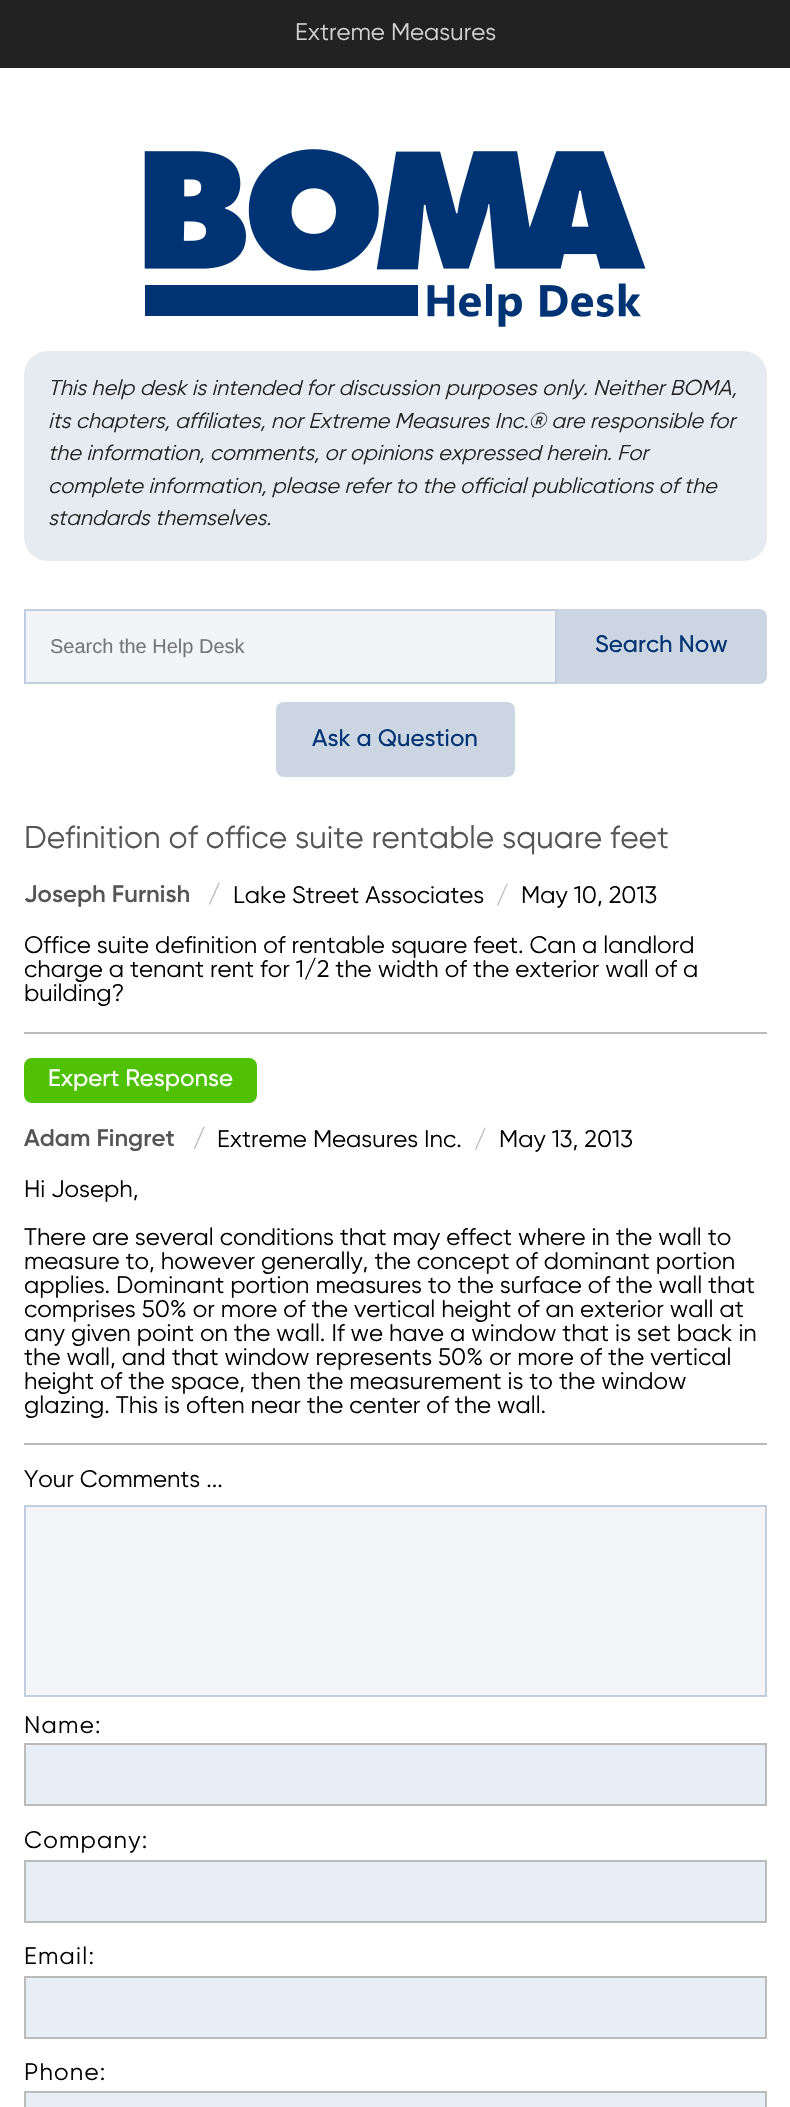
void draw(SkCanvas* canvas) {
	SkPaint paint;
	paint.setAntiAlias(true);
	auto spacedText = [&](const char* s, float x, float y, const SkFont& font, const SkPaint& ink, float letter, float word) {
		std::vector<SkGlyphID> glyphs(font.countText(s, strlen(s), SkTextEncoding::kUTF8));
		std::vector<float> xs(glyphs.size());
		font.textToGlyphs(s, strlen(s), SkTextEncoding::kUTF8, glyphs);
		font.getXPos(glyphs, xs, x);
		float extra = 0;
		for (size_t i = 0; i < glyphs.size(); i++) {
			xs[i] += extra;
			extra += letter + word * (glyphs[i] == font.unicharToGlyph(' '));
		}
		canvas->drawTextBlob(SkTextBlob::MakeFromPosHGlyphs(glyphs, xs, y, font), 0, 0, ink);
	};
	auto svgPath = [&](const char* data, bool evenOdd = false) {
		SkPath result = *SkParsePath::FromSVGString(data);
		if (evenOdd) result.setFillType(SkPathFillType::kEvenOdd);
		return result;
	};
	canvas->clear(0xffffffff);
	paint.setColor(0xff222222);
	canvas->drawRect(SkRect::MakeXYWH(0, 0, 790, 68), paint);
	SkFont f1(fontMgr->matchFamilyStyle("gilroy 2", SkFontStyle::Normal()), 24);
	f1.setSubpixel(true);
	paint.setColor(0xffd3d3d3);
	canvas->drawString("Extreme Measures", 295, 40, f1, paint);
	canvas->drawImageRect(SkImages::DeferredFromEncodedData(SkData::MakeFromFileName("img1.png")), SkRect::MakeXYWH(144, 149, 502, 178), SkSamplingOptions());
	paint.setColor(0xffe6ebf2);
	canvas->drawRoundRect(SkRect::MakeXYWH(24, 351, 743, 210), 24, 24, paint);
	SkFont f2(fontMgr->matchFamilyStyle("gilroy", SkFontStyle::Italic()), 21.6);
	f2.setSubpixel(true);
	paint.setColor(0xff222222);
	canvas->drawString("This help desk is intended for discussion purposes only. Neither BOMA,", 48, 395, f2, paint);
	canvas->drawString("its chapters, affiliates, nor Extreme Measures Inc.® are responsible for", 48, 428, f2, paint);
	canvas->drawString("the information, comments, or opinions expressed herein. For", 48, 460, f2, paint);
	canvas->drawString("complete information, please refer to the official publications of the", 48, 493, f2, paint);
	canvas->drawString("standards themselves.", 48, 525, f2, paint);
	paint.setColor(0xfff2f5f8);
	canvas->drawRect(SkRect::MakeXYWH(25, 610, 531, 73), paint);
	paint.setStroke(true);
	paint.setStrokeWidth(2);
	paint.setColor(0xffc2cedd);
	canvas->drawRect(SkRect::MakeXYWH(25, 610, 531, 73), paint);
	SkFont f3(fontMgr->matchFamilyStyle("Liberation Sans", SkFontStyle::Normal()), 20);
	f3.setSubpixel(true);
	paint.setStroke(false);
	paint.setColor(0xff757575);
	canvas->drawString("Search the Help Desk", 50, 653, f3, paint);
	paint.setColor(0xffccd6e3);
	canvas->drawPath(svgPath("M557 609H759C763.5 609 767 612.5 767 617V676C767 680.5 763.5 684 759 684H557Z"), paint);
	SkFont f4(fontMgr->matchFamilyStyle("gilroy", SkFontStyle::Normal()), 24);
	f4.setSubpixel(true);
	paint.setColor(0xff003373);
	canvas->drawString("Search Now", 595, 652, f4, paint);
	paint.setColor(0xffccd6e3);
	canvas->drawRoundRect(SkRect::MakeXYWH(276, 702, 239, 75), 8, 8, paint);
	paint.setColor(0xff003373);
	canvas->drawString("Ask a Question", 312, 746, f4, paint);
	SkFont f5(fontMgr->matchFamilyStyle("gilroy 2", SkFontStyle::Normal()), 31.5);
	f5.setSubpixel(true);
	paint.setColor(0xff555555);
	canvas->drawString("Definition of office suite rentable square feet", 24, 848, f5, paint);
	paint.setColor(0xffbbbbbb);
	canvas->drawRect(SkRect::MakeXYWH(24, 1032, 743, 2), paint);
	SkFont f6(fontMgr->matchFamilyStyle("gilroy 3", SkFontStyle::Normal()), 24);
	f6.setSubpixel(true);
	paint.setColor(0xff555555);
	canvas->drawString("Joseph Furnish", 24, 902, f6, paint);
	paint.setColor(0xffbbbbbb);
	canvas->drawString("/", 208, 902, f6, paint);
	paint.setColor(0xff000000);
	canvas->drawString("Lake Street Associates", 233, 903, f1, paint);
	paint.setColor(0xffbbbbbb);
	canvas->drawString("/", 496, 903, f1, paint);
	paint.setColor(0xff000000);
	canvas->drawString("May 10, 2013", 521, 903, f1, paint);
	canvas->drawString("Office suite definition of rentable square feet. Can a landlord", 24, 953, f1, paint);
	canvas->drawString("charge a tenant rent for 1/2 the width of the exterior wall of a", 24, 977, f1, paint);
	canvas->drawString("building?", 24, 1001, f1, paint);
	paint.setColor(0xffbbbbbb);
	canvas->drawRect(SkRect::MakeXYWH(24, 1443, 743, 2), paint);
	paint.setColor(0xff51c105);
	canvas->drawRoundRect(SkRect::MakeXYWH(24, 1058, 233, 45), 8, 8, paint);
	paint.setColor(0xffffffff);
	canvas->drawString("Expert Response", 48, 1086, f4, paint);
	paint.setColor(0xff555555);
	canvas->drawString("Adam Fingret", 24, 1146, f6, paint);
	paint.setColor(0xffbbbbbb);
	canvas->drawString("/", 193, 1146, f6, paint);
	paint.setColor(0xff000000);
	canvas->drawString("Extreme Measures Inc.", 217, 1147, f1, paint);
	paint.setColor(0xffbbbbbb);
	canvas->drawString("/", 474, 1147, f1, paint);
	paint.setColor(0xff000000);
	canvas->drawString("May 13, 2013", 499, 1147, f1, paint);
	canvas->drawString("Hi Joseph,", 24, 1197, f1, paint);
	canvas->drawString("There are several conditions that may effect where in the wall to", 24, 1245, f1, paint);
	canvas->drawString("measure to, however generally, the concept of dominant portion", 24, 1269, f1, paint);
	canvas->drawString("applies. Dominant portion measures to the surface of the wall that", 24, 1293, f1, paint);
	canvas->drawString("comprises 50% or more of the vertical height of an exterior wall at", 24, 1317, f1, paint);
	canvas->drawString("any given point on the wall. If we have a window that is set back in", 24, 1341, f1, paint);
	canvas->drawString("the wall, and that window represents 50% or more of the vertical", 24, 1365, f1, paint);
	canvas->drawString("height of the space, then the measurement is to the window", 24, 1389, f1, paint);
	canvas->drawString("glazing. This is often near the center of the wall.", 24, 1413, f1, paint);
	canvas->drawString("Your Comments ...", 24, 1487, f1, paint);
	paint.setColor(0xfff3f5f9);
	canvas->drawRect(SkRect::MakeXYWH(25, 1506, 741, 190), paint);
	paint.setStroke(true);
	paint.setColor(0xffc2cede);
	canvas->drawRect(SkRect::MakeXYWH(25, 1506, 741, 190), paint);
	paint.setStroke(false);
	paint.setColor(0xff000000);
	spacedText("Name:", 24, 1733, f1, paint, 1.25, 0);
	paint.setColor(0xffe7eef5);
	canvas->drawRect(SkRect::MakeXYWH(25, 1744, 741, 61), paint);
	paint.setStroke(true);
	paint.setColor(0xffbbbbbb);
	canvas->drawRect(SkRect::MakeXYWH(25, 1744, 741, 61), paint);
	paint.setStroke(false);
	paint.setColor(0xff000000);
	spacedText("Company:", 24, 1848, f1, paint, 1.25, 0);
	paint.setColor(0xffe7eef5);
	canvas->drawRect(SkRect::MakeXYWH(25, 1861, 741, 61), paint);
	paint.setStroke(true);
	paint.setColor(0xffbbbbbb);
	canvas->drawRect(SkRect::MakeXYWH(25, 1861, 741, 61), paint);
	paint.setStroke(false);
	paint.setColor(0xff000000);
	spacedText("Email:", 24, 1964, f1, paint, 1.25, 0);
	paint.setColor(0xffe7eef5);
	canvas->drawRect(SkRect::MakeXYWH(25, 1977, 741, 61), paint);
	paint.setStroke(true);
	paint.setColor(0xffbbbbbb);
	canvas->drawRect(SkRect::MakeXYWH(25, 1977, 741, 61), paint);
	paint.setStroke(false);
	paint.setColor(0xff000000);
	spacedText("Phone:", 24, 2080, f1, paint, 1.25, 0);
	paint.setColor(0xffe7eef5);
	canvas->drawRect(SkRect::MakeXYWH(25, 2092, 741, 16), paint);
	paint.setStroke(true);
	paint.setColor(0xffbbbbbb);
	canvas->drawRect(SkRect::MakeXYWH(25, 2092, 741, 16), paint);
}
